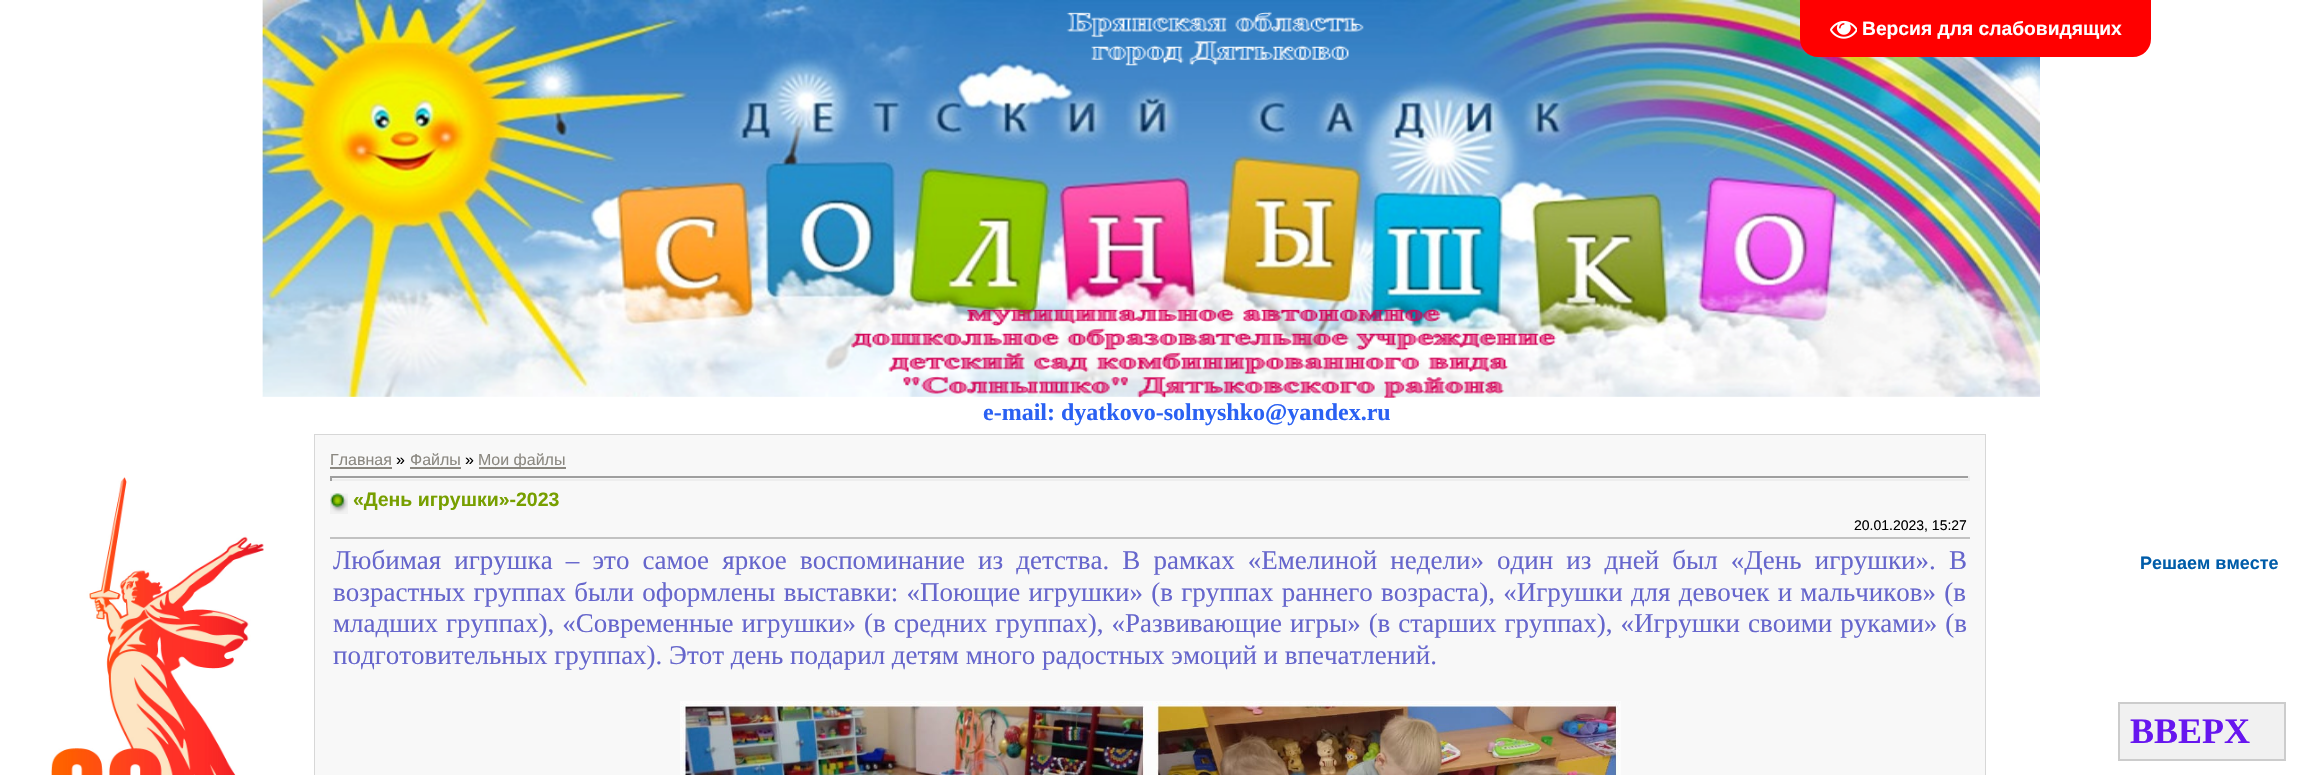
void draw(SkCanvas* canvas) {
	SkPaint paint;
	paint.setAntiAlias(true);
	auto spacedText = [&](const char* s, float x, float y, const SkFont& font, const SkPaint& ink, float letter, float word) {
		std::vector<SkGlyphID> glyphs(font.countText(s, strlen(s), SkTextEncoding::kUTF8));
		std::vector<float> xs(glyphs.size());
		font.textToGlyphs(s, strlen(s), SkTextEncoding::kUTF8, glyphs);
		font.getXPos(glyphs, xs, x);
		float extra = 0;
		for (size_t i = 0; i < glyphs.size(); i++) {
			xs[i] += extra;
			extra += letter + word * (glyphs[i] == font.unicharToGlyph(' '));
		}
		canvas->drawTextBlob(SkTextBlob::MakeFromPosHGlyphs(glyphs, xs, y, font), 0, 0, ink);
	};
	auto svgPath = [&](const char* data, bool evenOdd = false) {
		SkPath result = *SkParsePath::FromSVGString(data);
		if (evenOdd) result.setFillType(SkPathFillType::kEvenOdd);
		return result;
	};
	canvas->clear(0xffffffff);
	canvas->drawImageRect(SkImages::DeferredFromEncodedData(SkData::MakeFromFileName("img1.png")), SkRect::MakeXYWH(262, 0, 1778, 398), SkSamplingOptions());
	paint.setColor(0xffff0000);
	canvas->drawPath(svgPath("M1800 0H2151V39C2151 49 2143 57 2133 57H1818C1808 57 1800 49 1800 39Z"), paint);
	canvas->drawImageRect(SkImages::DeferredFromEncodedData(SkData::MakeFromFileName("img2.png")), SkRect::MakeXYWH(1830, 20, 27, 19), SkSamplingOptions());
	SkFont f1(fontMgr->matchFamilyStyle("Liberation Sans", SkFontStyle::Bold()), 19.25);
	f1.setSubpixel(true);
	paint.setColor(0xffffffff);
	canvas->drawString("Версия для слабовидящих", 1862, 35, f1, paint);
	SkFont f2(fontMgr->matchFamilyStyle("Liberation Serif", SkFontStyle::Bold()), 24);
	f2.setSubpixel(true);
	paint.setColor(0xff2a61f3);
	canvas->drawString("e-mail: dyatkovo-solnyshko@yandex.ru", 983, 420, f2, paint);
	canvas->drawImageRect(SkImages::DeferredFromEncodedData(SkData::MakeFromFileName("img3.png")), SkRect::MakeXYWH(51, 477, 213, 298), SkSamplingOptions());
	paint.setStroke(true);
	paint.setStrokeWidth(2);
	paint.setColor(0xffd7d7d7);
	canvas->drawRect(SkRect::MakeXYWH(315, 435, 1670, 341), paint);
	paint.setStroke(false);
	paint.setColor(0xfff8f8f8);
	canvas->drawRect(SkRect::MakeXYWH(315, 435, 1670, 340), paint);
	SkFont f3(fontMgr->matchFamilyStyle("Liberation Sans", SkFontStyle::Normal()), 16);
	f3.setSubpixel(true);
	paint.setColor(0xff8b8881);
	canvas->drawString("Главная", 330, 465, f3, paint);
	canvas->drawRect(SkRect::MakeXYWH(330, 467, 62, 2), paint);
	paint.setColor(0xff000000);
	canvas->drawString("»", 396, 465, f3, paint);
	paint.setColor(0xff8b8881);
	canvas->drawString("Файлы", 410, 465, f3, paint);
	canvas->drawRect(SkRect::MakeXYWH(410, 467, 51, 2), paint);
	paint.setColor(0xff000000);
	canvas->drawString("»", 465, 465, f3, paint);
	paint.setColor(0xff8b8881);
	canvas->drawRect(SkRect::MakeXYWH(479, 467, 87, 2), paint);
	canvas->drawString("Мои файлы", 478, 465, f3, paint);
	paint.setColor(0xff9f9f9f);
	canvas->drawRect(SkRect::MakeXYWH(330, 476, 1640, 2), paint);
	paint.setColor(0xffeeeeee);
	canvas->drawRect(SkRect::MakeXYWH(1968, 476, 2, 5), paint);
	canvas->drawRect(SkRect::MakeXYWH(330, 479, 1640, 2), paint);
	paint.setColor(0xff9f9f9f);
	canvas->drawRect(SkRect::MakeXYWH(330, 476, 2, 5), paint);
	canvas->drawImageRect(SkImages::DeferredFromEncodedData(SkData::MakeFromFileName("img4.png")), SkRect::MakeXYWH(330, 493, 18, 21), SkSamplingOptions());
	SkFont f4(fontMgr->matchFamilyStyle("Liberation Sans", SkFontStyle::Bold()), 19.5);
	f4.setSubpixel(true);
	paint.setColor(0xff779f00);
	canvas->drawString("«День игрушки»-2023", 353, 506, f4, paint);
	SkFont f5(fontMgr->matchFamilyStyle("Liberation Sans", SkFontStyle::Normal()), 14);
	f5.setSubpixel(true);
	paint.setColor(0xff000000);
	canvas->drawString("20.01.2023, 15:27", 1854, 530, f5, paint);
	paint.setColor(0xffc2c2c2);
	canvas->drawRect(SkRect::MakeXYWH(330, 537, 1640, 2), paint);
	SkFont f6(fontMgr->matchFamilyStyle("Liberation Serif", SkFontStyle::Normal()), 27);
	f6.setSubpixel(true);
	paint.setColor(0xff6666cc);
	spacedText("Любимая игрушка – это самое яркое воспоминание из детства. В рамках «Емелиной недели» один из дней был «День игрушки». В", 333, 569, f6, paint, 0, 6.4);
	spacedText("возрастных группах были оформлены выставки: «Поющие игрушки» (в группах раннего возраста), «Игрушки для девочек и мальчиков» (в", 333, 601, f6, paint, 0, 1.5);
	spacedText("младших группах), «Современные игрушки» (в средних группах), «Развивающие игры» (в старших группах), «Игрушки своими руками» (в", 333, 632, f6, paint, 0, 1.25);
	canvas->drawString("подготовительных группах). Этот день подарил детям много радостных эмоций и впечатлений.", 333, 664, f6, paint);
	canvas->drawImageRect(SkImages::DeferredFromEncodedData(SkData::MakeFromFileName("img5.png")), SkRect::MakeXYWH(680, 701, 941, 74), SkSamplingOptions());
	SkFont f7(fontMgr->matchFamilyStyle("Liberation Sans", SkFontStyle::Bold()), 18);
	f7.setSubpixel(true);
	paint.setColor(0xff005ca9);
	canvas->drawString("Решаем вместе", 2140, 569, f7, paint);
	paint.setColor(0xfff1f1f1);
	canvas->drawRect(SkRect::MakeXYWH(2119, 703, 166, 57), paint);
	paint.setStroke(true);
	paint.setColor(0xffcccccc);
	canvas->drawRect(SkRect::MakeXYWH(2119, 703, 166, 57), paint);
	SkFont f8(fontMgr->matchFamilyStyle("Liberation Serif", SkFontStyle::Bold()), 36);
	f8.setSubpixel(true);
	paint.setStroke(false);
	paint.setColor(0xff6716ef);
	canvas->drawString("ВВЕРХ", 2130, 743, f8, paint);
}
